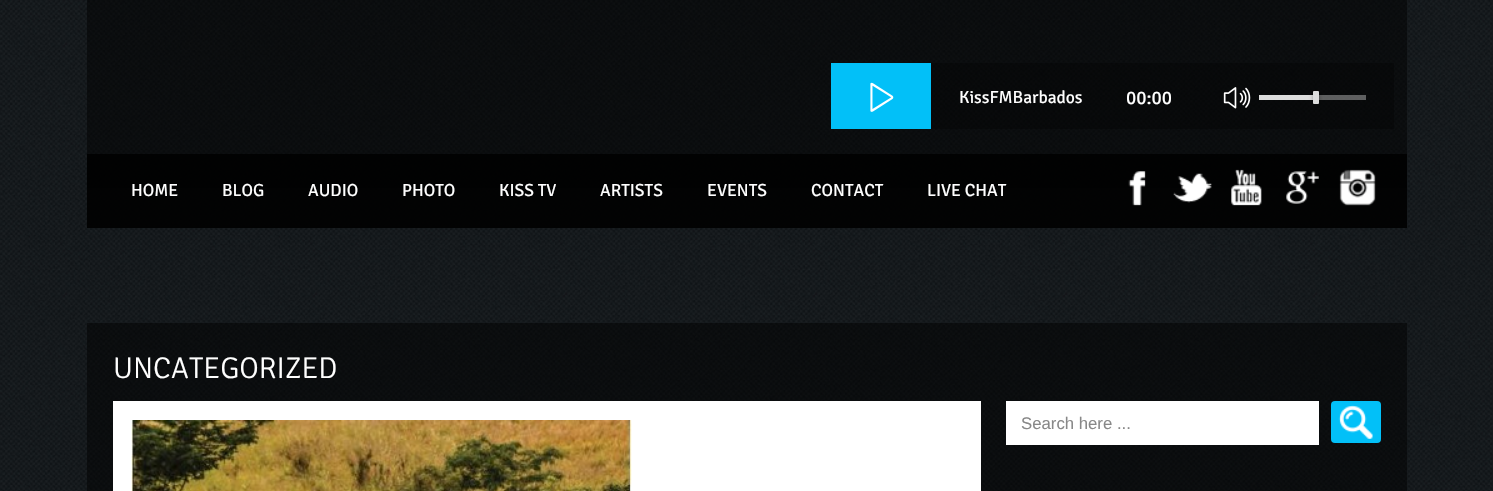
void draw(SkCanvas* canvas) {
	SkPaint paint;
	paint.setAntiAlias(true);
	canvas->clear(0xffffffff);
	canvas->drawImageRect(SkImages::DeferredFromEncodedData(SkData::MakeFromFileName("img1.png")), SkRect::MakeXYWH(0, 0, 1493, 491), SkSamplingOptions());
	paint.setColor(0x80000000);
	canvas->drawRect(SkRect::MakeXYWH(87, 0, 1320, 188), paint);
	paint.setColor(0x59000000);
	canvas->drawRect(SkRect::MakeXYWH(931, 63, 463, 66), paint);
	paint.setColor(0xff02c0f8);
	canvas->drawRect(SkRect::MakeXYWH(831, 63, 100, 66), paint);
	canvas->drawImageRect(SkImages::DeferredFromEncodedData(SkData::MakeFromFileName("img2.png")), SkRect::MakeXYWH(870, 82, 24, 30), SkSamplingOptions());
	SkFont f1(fontMgr->matchFamilyStyle("Signika Negative", SkFontStyle::Normal()), 17.5);
	f1.setSubpixel(true);
	paint.setColor(0xffffffff);
	canvas->drawString("KissFMBarbados", 959, 103, f1, paint);
	SkFont f2(fontMgr->matchFamilyStyle("Signika Negative", SkFontStyle::Normal()), 19);
	f2.setSubpixel(true);
	canvas->drawString("00:00", 1126, 104, f2, paint);
	canvas->drawImageRect(SkImages::DeferredFromEncodedData(SkData::MakeFromFileName("img3.png")), SkRect::MakeXYWH(1223, 87, 28, 22), SkSamplingOptions());
	paint.setColor(0x59ffffff);
	canvas->drawRect(SkRect::MakeXYWH(1319, 95, 47, 5), paint);
	paint.setColor(0xffdddddd);
	canvas->drawRect(SkRect::MakeXYWH(1259, 95, 54, 5), paint);
	paint.setColor(0x4d000000);
	paint.setMaskFilter(SkMaskFilter::MakeBlur(kNormal_SkBlurStyle, 2));
	canvas->drawRoundRect(SkRect::MakeXYWH(1313, 91, 6, 13), 1, 1, paint);
	paint.setMaskFilter(nullptr);
	paint.setColor(0xffdddddd);
	canvas->drawRoundRect(SkRect::MakeXYWH(1313, 91, 6, 13), 1, 1, paint);
	paint.setColor(0xe8000000);
	canvas->drawRect(SkRect::MakeXYWH(87, 154, 1320, 74), paint);
	paint.setColor(0xffffffff);
	canvas->drawString("HOME", 131, 196, f1, paint);
	canvas->drawString("BLOG", 222, 196, f1, paint);
	canvas->drawString("AUDIO", 308, 196, f1, paint);
	canvas->drawString("PHOTO", 402, 196, f1, paint);
	canvas->drawString("KISS TV", 499, 196, f1, paint);
	canvas->drawString("ARTISTS", 600, 196, f1, paint);
	canvas->drawString("EVENTS", 707, 196, f1, paint);
	canvas->drawString("CONTACT", 811, 196, f1, paint);
	canvas->drawString("LIVE CHAT", 927, 196, f1, paint);
	canvas->drawImageRect(SkImages::DeferredFromEncodedData(SkData::MakeFromFileName("img4.png")), SkRect::MakeXYWH(1128, 171, 18, 35), SkSamplingOptions());
	canvas->drawImageRect(SkImages::DeferredFromEncodedData(SkData::MakeFromFileName("img5.png")), SkRect::MakeXYWH(1173, 173, 39, 30), SkSamplingOptions());
	canvas->drawImageRect(SkImages::DeferredFromEncodedData(SkData::MakeFromFileName("img6.png")), SkRect::MakeXYWH(1231, 169, 31, 37), SkSamplingOptions());
	canvas->drawImageRect(SkImages::DeferredFromEncodedData(SkData::MakeFromFileName("img7.png")), SkRect::MakeXYWH(1286, 171, 33, 33), SkSamplingOptions());
	canvas->drawImageRect(SkImages::DeferredFromEncodedData(SkData::MakeFromFileName("img8.png")), SkRect::MakeXYWH(1339, 169, 37, 37), SkSamplingOptions());
	paint.setColor(0x80000000);
	canvas->drawRect(SkRect::MakeXYWH(87, 323, 1320, 168), paint);
	SkFont f3(fontMgr->matchFamilyStyle("Signika Negative", SkFontStyle(300, SkFontStyle::kNormal_Width, SkFontStyle::kUpright_Slant)), 30);
	f3.setSubpixel(true);
	paint.setColor(0xffffffff);
	canvas->drawString("UNCATEGORIZED", 113, 378, f3, paint);
	canvas->drawRect(SkRect::MakeXYWH(113, 401, 868, 90), paint);
	canvas->drawImageRect(SkImages::DeferredFromEncodedData(SkData::MakeFromFileName("img9.png")), SkRect::MakeXYWH(131, 420, 501, 71), SkSamplingOptions());
	canvas->drawRect(SkRect::MakeXYWH(1006, 401, 313, 44), paint);
	SkFont f4(fontMgr->matchFamilyStyle("Liberation Sans", SkFontStyle::Normal()), 16.75);
	f4.setSubpixel(true);
	paint.setColor(0xff888888);
	canvas->drawString("Search here ...", 1021, 429, f4, paint);
	paint.setColor(0xff02c0f8);
	canvas->drawRoundRect(SkRect::MakeXYWH(1331, 401, 50, 42), 4, 4, paint);
	canvas->drawImageRect(SkImages::DeferredFromEncodedData(SkData::MakeFromFileName("img10.png")), SkRect::MakeXYWH(1338, 405, 35, 35), SkSamplingOptions());
}
